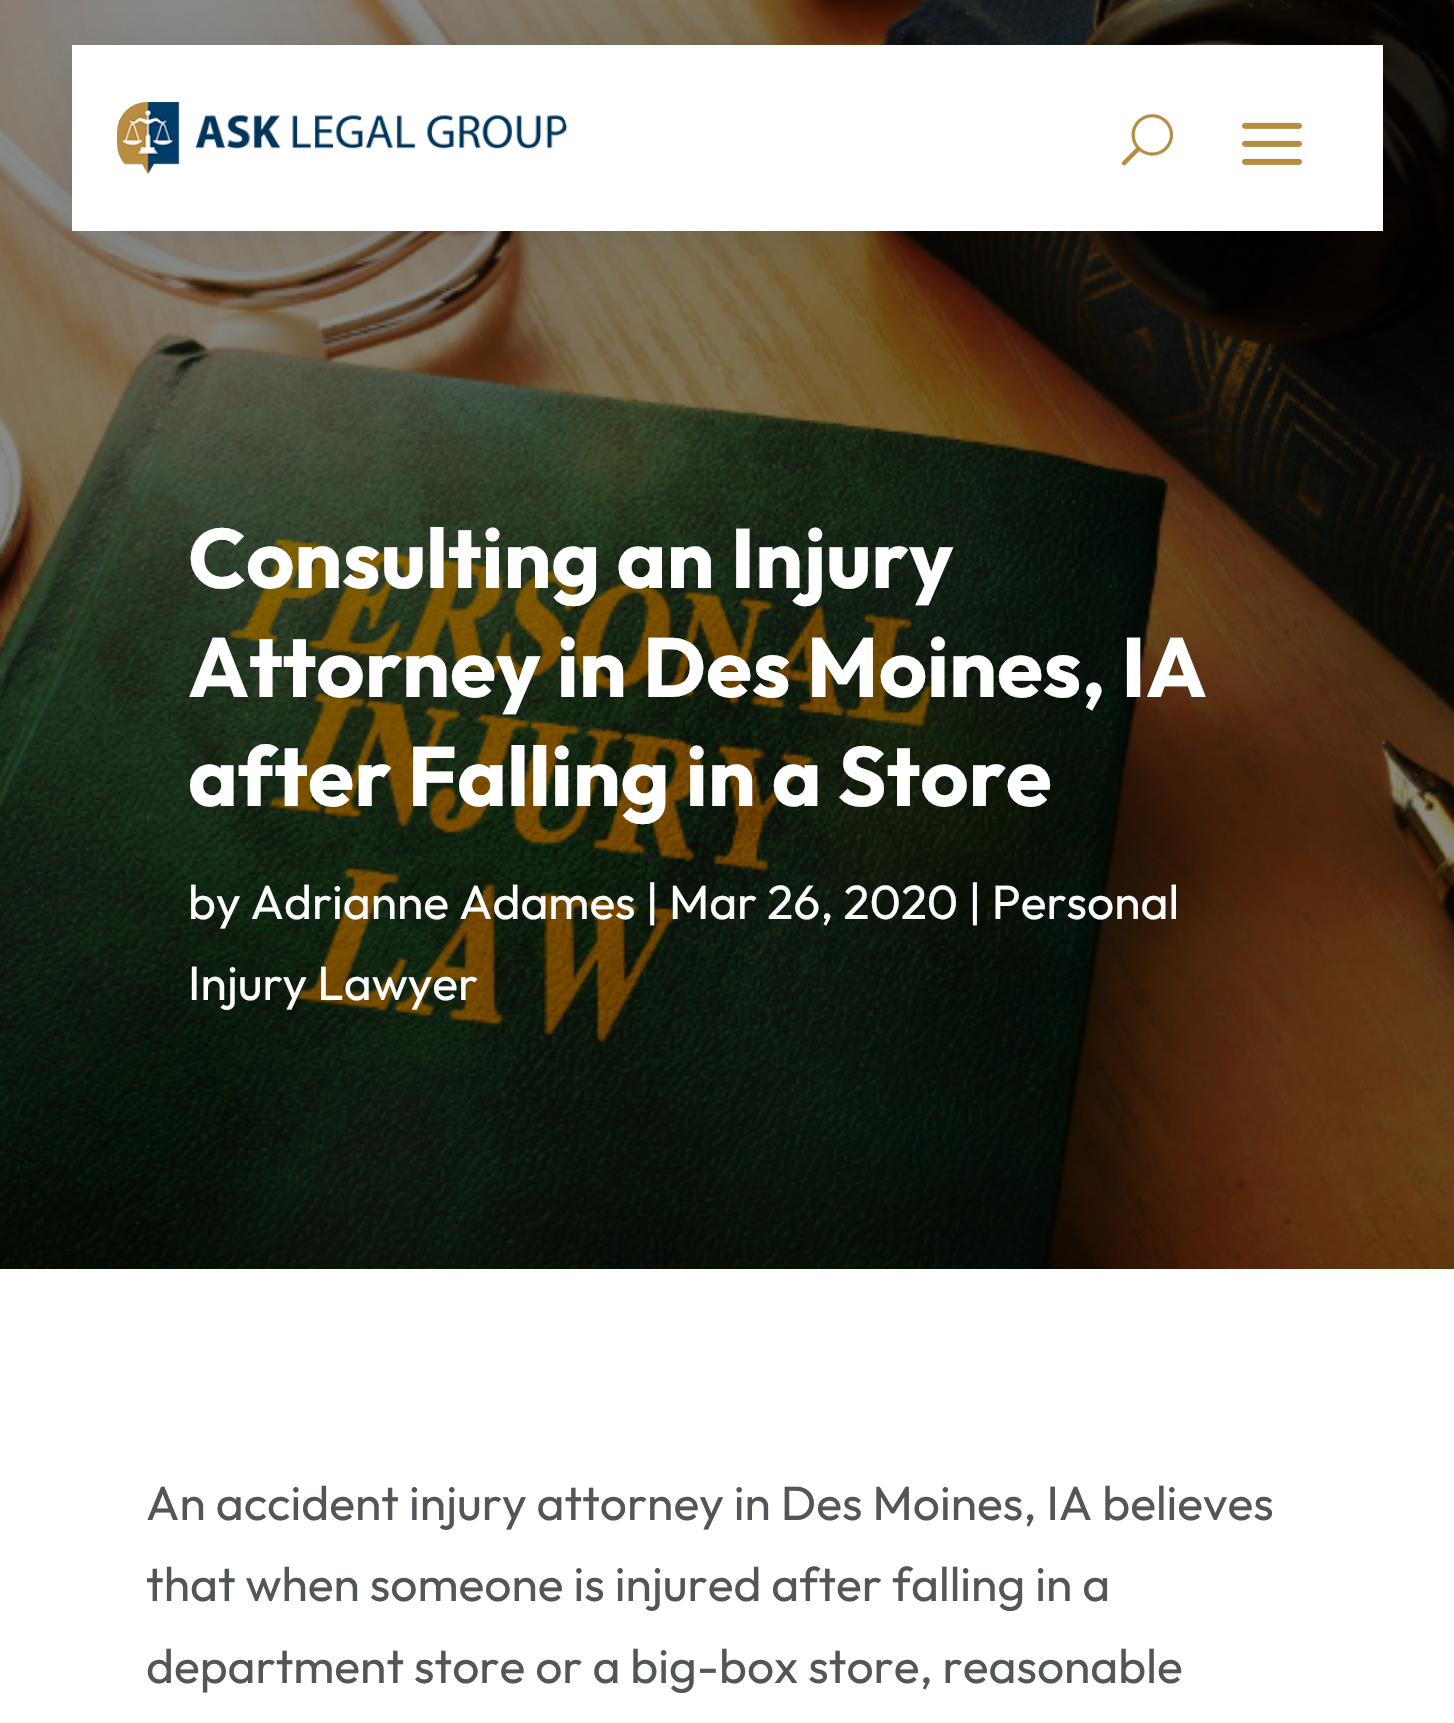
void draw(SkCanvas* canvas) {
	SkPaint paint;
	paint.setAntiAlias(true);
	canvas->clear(0xffffffff);
	canvas->drawImageRect(SkImages::DeferredFromEncodedData(SkData::MakeFromFileName("img4.png")), SkRect::MakeXYWH(0, 0, 1454, 1269), SkSamplingOptions());
	paint.setColor(0x1a000000);
	paint.setMaskFilter(SkMaskFilter::MakeBlur(kNormal_SkBlurStyle, 27));
	canvas->drawRect(SkRect::MakeXYWH(72, 51, 1311, 186), paint);
	paint.setMaskFilter(nullptr);
	paint.setColor(0xffffffff);
	canvas->drawRect(SkRect::MakeXYWH(72, 45, 1311, 186), paint);
	canvas->drawImageRect(SkImages::DeferredFromEncodedData(SkData::MakeFromFileName("img1.png")), SkRect::MakeXYWH(117, 102, 450, 72), SkSamplingOptions());
	canvas->drawImageRect(SkImages::DeferredFromEncodedData(SkData::MakeFromFileName("img2.png")), SkRect::MakeXYWH(1121, 114, 52, 52), SkSamplingOptions());
	canvas->drawImageRect(SkImages::DeferredFromEncodedData(SkData::MakeFromFileName("img3.png")), SkRect::MakeXYWH(1242, 122, 60, 43), SkSamplingOptions());
	SkFont f1(fontMgr->matchFamilyStyle("Outfit", SkFontStyle(100, SkFontStyle::kNormal_Width, SkFontStyle::kUpright_Slant)), 84);
	f1.setSubpixel(true);
	canvas->drawString("Consulting an Injury", 188, 588, f1, paint);
	canvas->drawString("Attorney in Des Moines, IA", 188, 697, f1, paint);
	canvas->drawString("after Falling in a Store", 188, 806, f1, paint);
	SkFont f2(fontMgr->matchFamilyStyle("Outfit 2", SkFontStyle(100, SkFontStyle::kNormal_Width, SkFontStyle::kUpright_Slant)), 48);
	f2.setSubpixel(true);
	canvas->drawString("by Adrianne Adames | Mar 26, 2020 | Personal", 188, 919, f2, paint);
	canvas->drawString("Injury Lawyer", 188, 1000, f2, paint);
	paint.setColor(0xff535659);
	canvas->drawString("An accident injury attorney in Des Moines, IA believes", 146, 1520, f2, paint);
	canvas->drawString("that when someone is injured after falling in a", 146, 1601, f2, paint);
	canvas->drawString("department store or a big-box store, reasonable", 146, 1683, f2, paint);
}
